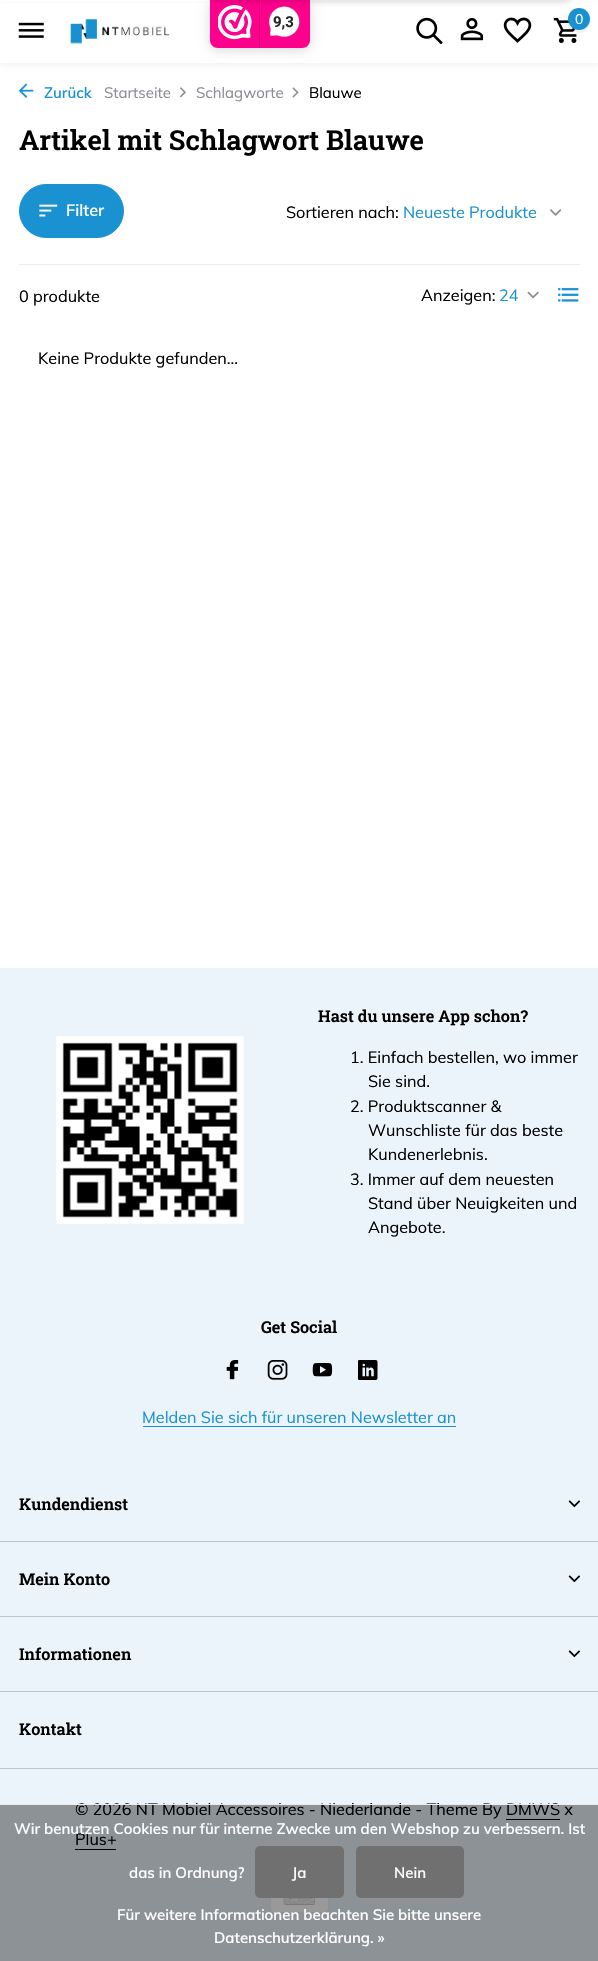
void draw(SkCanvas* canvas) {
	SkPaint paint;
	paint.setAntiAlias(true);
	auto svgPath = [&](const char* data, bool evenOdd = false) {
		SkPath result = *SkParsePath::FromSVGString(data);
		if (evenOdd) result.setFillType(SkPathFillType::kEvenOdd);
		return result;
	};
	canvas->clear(0xffffffff);
	paint.setColor(0x0a000000);
	paint.setMaskFilter(SkMaskFilter::MakeBlur(kNormal_SkBlurStyle, 2));
	canvas->drawRect(SkRect::MakeXYWH(0, 4, 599, 62), paint);
	paint.setMaskFilter(nullptr);
	paint.setColor(0xffffffff);
	canvas->drawRect(SkRect::MakeXYWH(0, 3, 598, 60), paint);
	paint.setColor(0x26000000);
	paint.setMaskFilter(SkMaskFilter::MakeBlur(kNormal_SkBlurStyle, 6));
	canvas->drawRoundRect(SkRect::MakeXYWH(210, 0, 100, 50), 8, 8, paint);
	paint.setMaskFilter(nullptr);
	paint.setColor(0xfffe008c);
	canvas->drawPath(svgPath("M210-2H310V40C310 44.5 306.5 48 302 48H218C213.5 48 210 44.5 210 40Z"), paint);
	canvas->drawImageRect(SkImages::DeferredFromEncodedData(SkData::MakeFromFileName("img1.png")), SkRect::MakeXYWH(218, 5, 34, 35), SkSamplingOptions());
	paint.setColor(0xffd80077);
	canvas->drawRect(SkRect::MakeXYWH(259, 0, 1, 48), paint);
	canvas->drawImageRect(SkImages::DeferredFromEncodedData(SkData::MakeFromFileName("img2.png")), SkRect::MakeXYWH(269, 6, 31, 32), SkSamplingOptions());
	canvas->drawImageRect(SkImages::DeferredFromEncodedData(SkData::MakeFromFileName("img8.png")), SkRect::MakeXYWH(553, 17, 24, 26), SkSamplingOptions());
	paint.setColor(0x0f000000);
	paint.setMaskFilter(SkMaskFilter::MakeBlur(kNormal_SkBlurStyle, 1));
	canvas->drawRoundRect(SkRect::MakeXYWH(568, 10, 22, 23), 11, 11, paint);
	paint.setMaskFilter(nullptr);
	paint.setColor(0xff1a92d1);
	canvas->drawCircle(579, 19, 11, paint);
	paint.setColor(0x1a000000);
	paint.setMaskFilter(SkMaskFilter::MakeBlur(kNormal_SkBlurStyle, 2.5));
	canvas->drawRoundRect(SkRect::MakeXYWH(210, -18, 363, 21), 10, 10, paint);
	paint.setMaskFilter(nullptr);
	SkFont f1(fontMgr->matchFamilyStyle("Roboto", SkFontStyle::Bold()), 15);
	f1.setSubpixel(true);
	paint.setColor(0xff272626);
	canvas->drawString("9,3", 273, 27, f1, paint);
	canvas->drawImageRect(SkImages::DeferredFromEncodedData(SkData::MakeFromFileName("img3.png")), SkRect::MakeXYWH(18, 22, 26, 16), SkSamplingOptions());
	canvas->drawImageRect(SkImages::DeferredFromEncodedData(SkData::MakeFromFileName("img4.png")), SkRect::MakeXYWH(70, 19, 100, 25), SkSamplingOptions());
	canvas->drawImageRect(SkImages::DeferredFromEncodedData(SkData::MakeFromFileName("img5.png")), SkRect::MakeXYWH(416, 17, 27, 27), SkSamplingOptions());
	canvas->drawImageRect(SkImages::DeferredFromEncodedData(SkData::MakeFromFileName("img6.png")), SkRect::MakeXYWH(460, 18, 24, 23), SkSamplingOptions());
	canvas->drawImageRect(SkImages::DeferredFromEncodedData(SkData::MakeFromFileName("img7.png")), SkRect::MakeXYWH(503, 17, 29, 26), SkSamplingOptions());
	SkFont f2(fontMgr->matchFamilyStyle("Muli", SkFontStyle::Normal()), 14);
	f2.setSubpixel(true);
	paint.setColor(0xffffffff);
	canvas->drawString("0", 575, 24, f2, paint);
	canvas->drawImageRect(SkImages::DeferredFromEncodedData(SkData::MakeFromFileName("img9.png")), SkRect::MakeXYWH(18, 83, 16, 15), SkSamplingOptions());
	SkFont f3(fontMgr->matchFamilyStyle("Muli", SkFontStyle(600, SkFontStyle::kNormal_Width, SkFontStyle::kUpright_Slant)), 15);
	f3.setSubpixel(true);
	paint.setColor(0xff1a92d1);
	canvas->drawString("Zurück", 44, 98, f3, paint);
	SkFont f4(fontMgr->matchFamilyStyle("Muli", SkFontStyle::Normal()), 15);
	f4.setSubpixel(true);
	paint.setColor(0xff898d93);
	canvas->drawString("Startseite", 104, 98, f4, paint);
	canvas->drawImageRect(SkImages::DeferredFromEncodedData(SkData::MakeFromFileName("img10.png")), SkRect::MakeXYWH(180, 87, 6, 11), SkSamplingOptions());
	canvas->drawString("Schlagworte", 196, 98, f4, paint);
	canvas->drawImageRect(SkImages::DeferredFromEncodedData(SkData::MakeFromFileName("img11.png")), SkRect::MakeXYWH(292, 87, 7, 11), SkSamplingOptions());
	paint.setColor(0xff000000);
	canvas->drawString("Blauwe", 309, 98, f4, paint);
	SkFont f5(fontMgr->matchFamilyStyle("Roboto Slab", SkFontStyle(600, SkFontStyle::kNormal_Width, SkFontStyle::kUpright_Slant)), 27.5);
	f5.setSubpixel(true);
	canvas->drawString("Artikel mit Schlagwort Blauwe", 19, 150, f5, paint);
	paint.setColor(0xff1a92d1);
	canvas->drawRoundRect(SkRect::MakeXYWH(19.5, 184.5, 104, 53), 26.5, 26.5, paint);
	paint.setStroke(true);
	paint.setStrokeWidth(1);
	canvas->drawRoundRect(SkRect::MakeXYWH(19.5, 184.5, 104, 53), 26.5, 26.5, paint);
	canvas->drawImageRect(SkImages::DeferredFromEncodedData(SkData::MakeFromFileName("img12.png")), SkRect::MakeXYWH(39, 204, 19, 13), SkSamplingOptions());
	SkFont f6(fontMgr->matchFamilyStyle("Muli", SkFontStyle(600, SkFontStyle::kNormal_Width, SkFontStyle::kUpright_Slant)), 16.25);
	f6.setSubpixel(true);
	paint.setStroke(false);
	paint.setColor(0xffffffff);
	canvas->drawString("Filter", 66, 216, f6, paint);
	SkFont f7(fontMgr->matchFamilyStyle("Muli", SkFontStyle::Normal()), 16.25);
	f7.setSubpixel(true);
	paint.setColor(0xff000000);
	canvas->drawString("Sortieren nach:", 286, 218, f7, paint);
	paint.setColor(0xff1a92d1);
	canvas->drawString("Neueste Produkte", 403, 218, f7, paint);
	canvas->drawImageRect(SkImages::DeferredFromEncodedData(SkData::MakeFromFileName("img13.png")), SkRect::MakeXYWH(550, 209, 12, 7), SkSamplingOptions());
	paint.setColor(0xff000000);
	canvas->drawString("Anzeigen:", 421, 301, f7, paint);
	paint.setColor(0xff1a92d1);
	canvas->drawString("24", 499, 301, f7, paint);
	canvas->drawImageRect(SkImages::DeferredFromEncodedData(SkData::MakeFromFileName("img14.png")), SkRect::MakeXYWH(527, 291, 12, 8), SkSamplingOptions());
	canvas->drawImageRect(SkImages::DeferredFromEncodedData(SkData::MakeFromFileName("img15.png")), SkRect::MakeXYWH(558, 288, 21, 14), SkSamplingOptions());
	paint.setColor(0xffececec);
	canvas->drawRect(SkRect::MakeXYWH(19, 264, 561, 1), paint);
	paint.setColor(0xff000000);
	canvas->drawString("0 produkte", 19, 302, f7, paint);
	canvas->drawString("Keine Produkte gefunden...", 38, 364, f7, paint);
	paint.setColor(0xffebf4fb);
	canvas->drawRect(SkRect::MakeXYWH(0, 968, 598, 993), paint);
	canvas->drawImageRect(SkImages::DeferredFromEncodedData(SkData::MakeFromFileName("img16.png")), SkRect::MakeXYWH(56, 1036, 188, 188), SkSamplingOptions());
	SkFont f8(fontMgr->matchFamilyStyle("Roboto Slab", SkFontStyle(600, SkFontStyle::kNormal_Width, SkFontStyle::kUpright_Slant)), 16.25);
	f8.setSubpixel(true);
	paint.setColor(0xff000000);
	canvas->drawString("Hast du unsere App schon?", 318, 1022, f8, paint);
	canvas->drawString("1. Einfach bestellen, wo immer", 350, 1063, f7, paint);
	canvas->drawString("Sie sind.", 368, 1087, f7, paint);
	canvas->drawString("2. Produktscanner &", 350, 1112, f7, paint);
	canvas->drawString("Wunschliste für das beste", 368, 1136, f7, paint);
	canvas->drawString("Kundenerlebnis.", 368, 1160, f7, paint);
	canvas->drawString("3. Immer auf dem neuesten", 350, 1185, f7, paint);
	canvas->drawString("Stand über Neuigkeiten und", 368, 1209, f7, paint);
	canvas->drawString("Angebote.", 368, 1233, f7, paint);
	canvas->drawString("Get Social", 261, 1333, f8, paint);
	canvas->drawImageRect(SkImages::DeferredFromEncodedData(SkData::MakeFromFileName("img17.png")), SkRect::MakeXYWH(226, 1360, 13, 20), SkSamplingOptions());
	canvas->drawImageRect(SkImages::DeferredFromEncodedData(SkData::MakeFromFileName("img18.png")), SkRect::MakeXYWH(267, 1360, 21, 20), SkSamplingOptions());
	canvas->drawImageRect(SkImages::DeferredFromEncodedData(SkData::MakeFromFileName("img19.png")), SkRect::MakeXYWH(312, 1363, 21, 14), SkSamplingOptions());
	canvas->drawImageRect(SkImages::DeferredFromEncodedData(SkData::MakeFromFileName("img20.png")), SkRect::MakeXYWH(358, 1360, 20, 20), SkSamplingOptions());
	paint.setColor(0xff1a92d1);
	canvas->drawString("Melden Sie sich für unseren Newsletter an", 142, 1423, f7, paint);
	canvas->drawRect(SkRect::MakeXYWH(143, 1426, 313, 1), paint);
	paint.setColor(0xff000000);
	canvas->drawString("Kundendienst", 19, 1510, f8, paint);
	canvas->drawImageRect(SkImages::DeferredFromEncodedData(SkData::MakeFromFileName("img21.png")), SkRect::MakeXYWH(568, 1500, 12, 8), SkSamplingOptions());
	paint.setColor(0xffbcc3c9);
	canvas->drawRect(SkRect::MakeXYWH(0, 1541, 598, 1), paint);
	paint.setColor(0xff000000);
	canvas->drawString("Mein Konto", 19, 1585, f8, paint);
	canvas->drawImageRect(SkImages::DeferredFromEncodedData(SkData::MakeFromFileName("img21.png")), SkRect::MakeXYWH(568, 1575, 12, 8), SkSamplingOptions());
	paint.setColor(0xffbcc3c9);
	canvas->drawRect(SkRect::MakeXYWH(0, 1616, 598, 1), paint);
	paint.setColor(0xff000000);
	canvas->drawString("Informationen", 19, 1660, f8, paint);
	canvas->drawImageRect(SkImages::DeferredFromEncodedData(SkData::MakeFromFileName("img21.png")), SkRect::MakeXYWH(568, 1650, 12, 8), SkSamplingOptions());
	paint.setColor(0xffbcc3c9);
	canvas->drawRect(SkRect::MakeXYWH(0, 1691, 598, 1), paint);
	paint.setColor(0xff000000);
	canvas->drawString("Kontakt", 19, 1735, f8, paint);
	paint.setColor(0xffbcc3c9);
	canvas->drawRect(SkRect::MakeXYWH(0, 1768, 598, 1), paint);
	paint.setColor(0xff000000);
	canvas->drawString("© 2026 NT Mobiel Accessoires - Niederlande - Theme By DMWS x", 75, 1815, f7, paint);
	canvas->drawRect(SkRect::MakeXYWH(506, 1819, 54, 1), paint);
	canvas->drawString("Plus+", 75, 1845, f7, paint);
	canvas->drawRect(SkRect::MakeXYWH(75, 1849, 41, 1), paint);
	paint.setColor(0xffffffff);
	canvas->drawRoundRect(SkRect::MakeXYWH(270.5, 1878.5, 58, 34), 3.5, 3.5, paint);
	paint.setStroke(true);
	paint.setColor(0xffececec);
	canvas->drawRoundRect(SkRect::MakeXYWH(270.5, 1878.5, 58, 34), 3.5, 3.5, paint);
	canvas->drawImageRect(SkImages::DeferredFromEncodedData(SkData::MakeFromFileName("img22.png")), SkRect::MakeXYWH(283, 1898, 32, 7), SkSamplingOptions());
	paint.setStroke(false);
	paint.setColor(0x66000000);
	canvas->drawRect(SkRect::MakeXYWH(0, 1805, 598, 156), paint);
	paint.setColor(0xffececec);
	canvas->drawRect(SkRect::MakeXYWH(0, 1804, 598, 1), paint);
	paint.setColor(0xffffffff);
	canvas->drawString("Wir benutzen Cookies nur für interne Zwecke um den Webshop zu verbessern. Ist", 14, 1834, f3, paint);
	canvas->drawString("das in Ordnung?", 129, 1878, f3, paint);
	paint.setColor(0xff707070);
	canvas->drawRoundRect(SkRect::MakeXYWH(255, 1846, 89, 52), 5, 5, paint);
	paint.setColor(0xffffffff);
	canvas->drawString("Ja", 292, 1878, f3, paint);
	paint.setColor(0xff707070);
	canvas->drawRoundRect(SkRect::MakeXYWH(356, 1846, 108, 52), 5, 5, paint);
	paint.setColor(0xffffffff);
	canvas->drawString("Nein", 394, 1878, f3, paint);
	canvas->drawString("Für weitere Informationen beachten Sie bitte unsere", 117, 1920, f3, paint);
	canvas->drawString("Datenschutzerklärung. »", 214, 1943, f3, paint);
}
